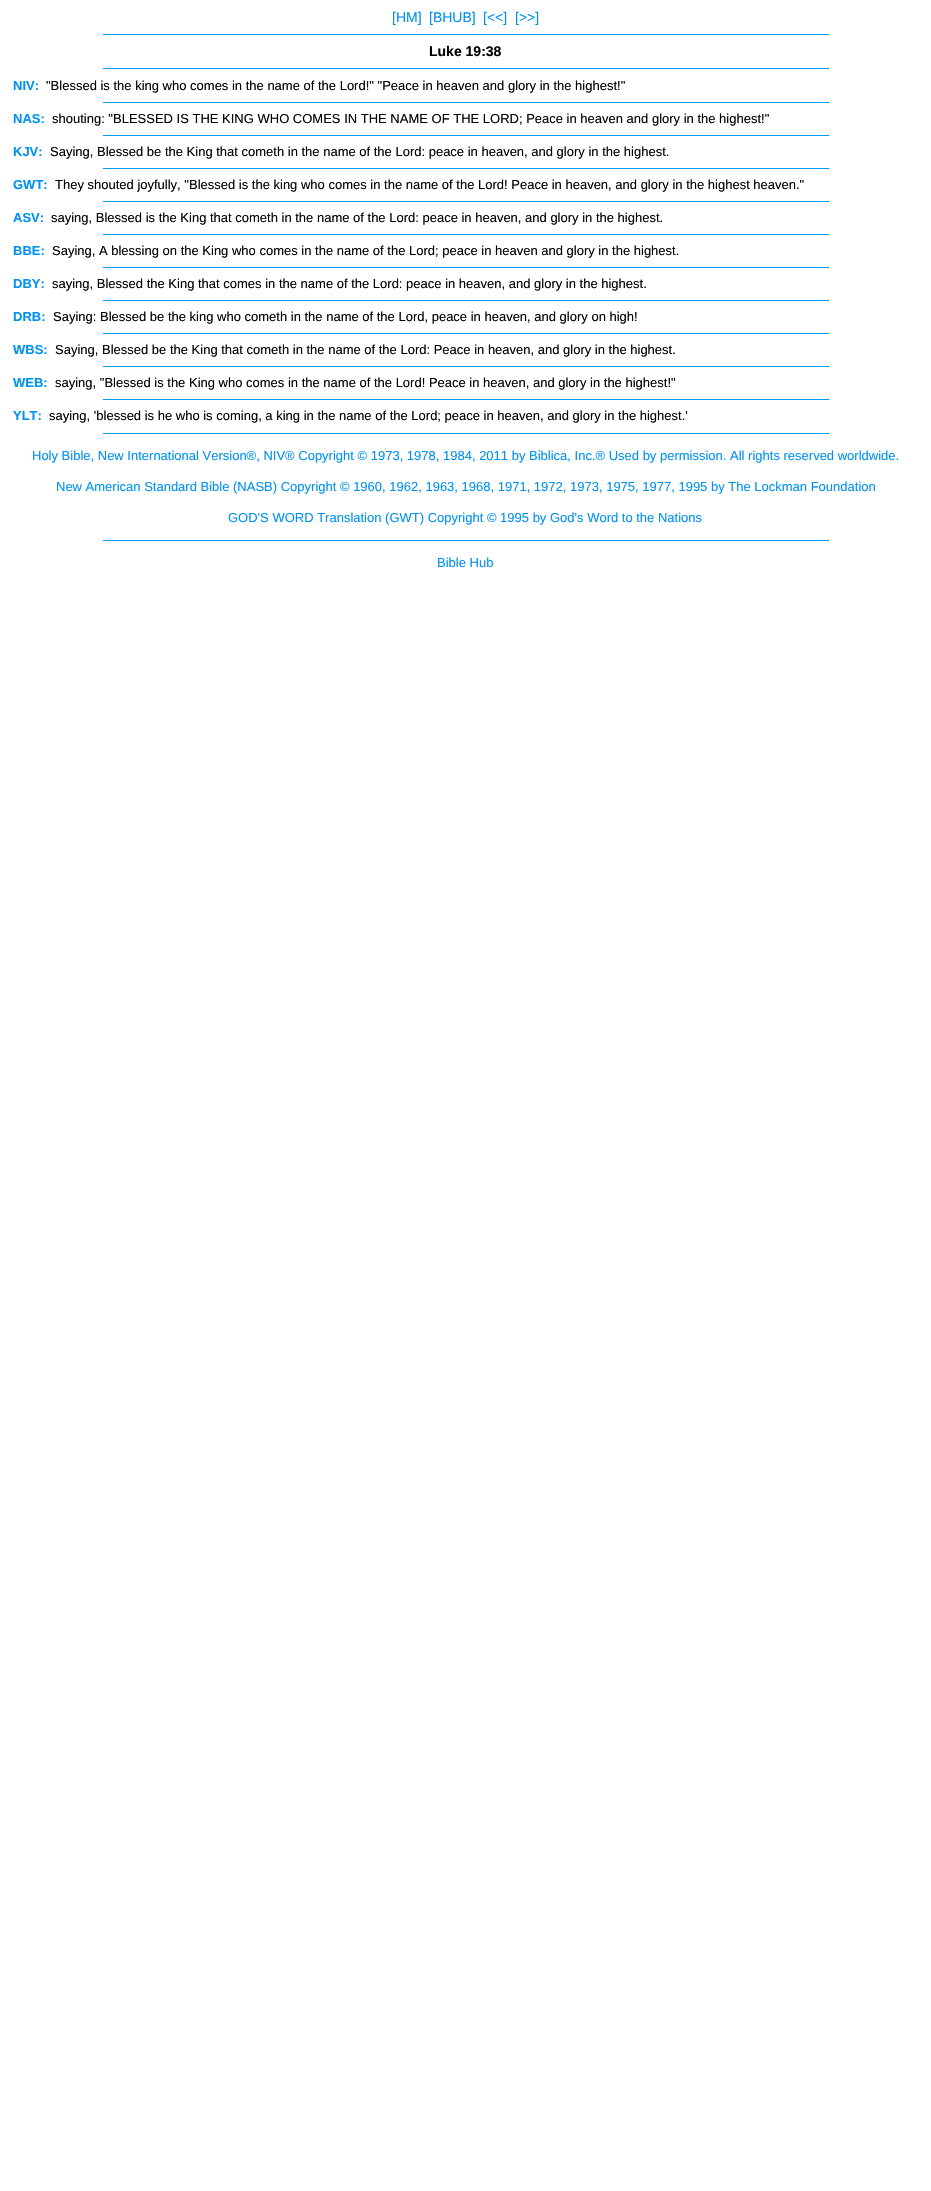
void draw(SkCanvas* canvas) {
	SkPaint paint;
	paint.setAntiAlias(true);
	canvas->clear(0xffffffff);
	SkFont f1(fontMgr->matchFamilyStyle("Liberation Sans", SkFontStyle::Normal()), 14);
	f1.setSubpixel(true);
	paint.setColor(0xff0092f2);
	canvas->drawString("[HM]", 392, 22, f1, paint);
	canvas->drawString("[BHUB]", 429, 22, f1, paint);
	canvas->drawString("[<<]", 483, 22, f1, paint);
	canvas->drawString("[>>]", 515, 22, f1, paint);
	paint.setColor(0xff0099ff);
	canvas->drawRect(SkRect::MakeXYWH(103, 34, 726, 1), paint);
	SkFont f2(fontMgr->matchFamilyStyle("Liberation Sans", SkFontStyle::Bold()), 14);
	f2.setSubpixel(true);
	paint.setColor(0xff000000);
	canvas->drawString("Luke 19:38", 429, 56, f2, paint);
	paint.setColor(0xff0099ff);
	canvas->drawRect(SkRect::MakeXYWH(103, 68, 726, 1), paint);
	SkFont f3(fontMgr->matchFamilyStyle("Liberation Sans", SkFontStyle::Bold()), 13);
	f3.setSubpixel(true);
	paint.setColor(0xff0092f2);
	canvas->drawString("NIV:", 13, 90, f3, paint);
	SkFont f4(fontMgr->matchFamilyStyle("Liberation Sans", SkFontStyle::Normal()), 13);
	f4.setSubpixel(true);
	paint.setColor(0xff000000);
	canvas->drawString("\"Blessed is the king who comes in the name of the Lord!\" \"Peace in heaven and glory in the highest!\"", 46, 90, f4, paint);
	paint.setColor(0xff0099ff);
	canvas->drawRect(SkRect::MakeXYWH(103, 102, 726, 1), paint);
	paint.setColor(0xff0092f2);
	canvas->drawString("NAS:", 13, 123, f3, paint);
	paint.setColor(0xff000000);
	canvas->drawString("shouting: \"BLESSED IS THE KING WHO COMES IN THE NAME OF THE LORD; Peace in heaven and glory in the highest!\"", 52, 123, f4, paint);
	paint.setColor(0xff0099ff);
	canvas->drawRect(SkRect::MakeXYWH(103, 135, 726, 1), paint);
	paint.setColor(0xff0092f2);
	canvas->drawString("KJV:", 13, 156, f3, paint);
	paint.setColor(0xff000000);
	canvas->drawString("Saying, Blessed be the King that cometh in the name of the Lord: peace in heaven, and glory in the highest.", 50, 156, f4, paint);
	paint.setColor(0xff0099ff);
	canvas->drawRect(SkRect::MakeXYWH(103, 168, 726, 1), paint);
	paint.setColor(0xff0092f2);
	canvas->drawString("GWT:", 13, 189, f3, paint);
	paint.setColor(0xff000000);
	canvas->drawString("They shouted joyfully, \"Blessed is the king who comes in the name of the Lord! Peace in heaven, and glory in the highest heaven.\"", 55, 189, f4, paint);
	paint.setColor(0xff0099ff);
	canvas->drawRect(SkRect::MakeXYWH(103, 201, 726, 1), paint);
	paint.setColor(0xff0092f2);
	canvas->drawString("ASV:", 13, 222, f3, paint);
	paint.setColor(0xff000000);
	canvas->drawString("saying, Blessed is the King that cometh in the name of the Lord: peace in heaven, and glory in the highest.", 51, 222, f4, paint);
	paint.setColor(0xff0099ff);
	canvas->drawRect(SkRect::MakeXYWH(103, 234, 726, 1), paint);
	paint.setColor(0xff0092f2);
	canvas->drawString("BBE:", 13, 255, f3, paint);
	paint.setColor(0xff000000);
	canvas->drawString("Saying, A blessing on the King who comes in the name of the Lord; peace in heaven and glory in the highest.", 52, 255, f4, paint);
	paint.setColor(0xff0099ff);
	canvas->drawRect(SkRect::MakeXYWH(103, 267, 726, 1), paint);
	paint.setColor(0xff0092f2);
	canvas->drawString("DBY:", 13, 288, f3, paint);
	paint.setColor(0xff000000);
	canvas->drawString("saying, Blessed the King that comes in the name of the Lord: peace in heaven, and glory in the highest.", 52, 288, f4, paint);
	paint.setColor(0xff0099ff);
	canvas->drawRect(SkRect::MakeXYWH(103, 300, 726, 1), paint);
	paint.setColor(0xff0092f2);
	canvas->drawString("DRB:", 13, 321, f3, paint);
	paint.setColor(0xff000000);
	canvas->drawString("Saying: Blessed be the king who cometh in the name of the Lord, peace in heaven, and glory on high!", 53, 321, f4, paint);
	paint.setColor(0xff0099ff);
	canvas->drawRect(SkRect::MakeXYWH(103, 333, 726, 1), paint);
	paint.setColor(0xff0092f2);
	canvas->drawString("WBS:", 13, 354, f3, paint);
	paint.setColor(0xff000000);
	canvas->drawString("Saying, Blessed be the King that cometh in the name of the Lord: Peace in heaven, and glory in the highest.", 55, 354, f4, paint);
	paint.setColor(0xff0099ff);
	canvas->drawRect(SkRect::MakeXYWH(103, 366, 726, 1), paint);
	paint.setColor(0xff0092f2);
	canvas->drawString("WEB:", 13, 387, f3, paint);
	paint.setColor(0xff000000);
	canvas->drawString("saying, \"Blessed is the King who comes in the name of the Lord! Peace in heaven, and glory in the highest!\"", 55, 387, f4, paint);
	paint.setColor(0xff0099ff);
	canvas->drawRect(SkRect::MakeXYWH(103, 399, 726, 1), paint);
	paint.setColor(0xff0092f2);
	canvas->drawString("YLT:", 13, 420, f3, paint);
	paint.setColor(0xff000000);
	canvas->drawString("saying, 'blessed is he who is coming, a king in the name of the Lord; peace in heaven, and glory in the highest.'", 49, 420, f4, paint);
	paint.setColor(0xff0099ff);
	canvas->drawRect(SkRect::MakeXYWH(103, 433, 726, 1), paint);
	paint.setColor(0xff0092f2);
	canvas->drawString("Holy Bible, New International Version®, NIV® Copyright © 1973, 1978, 1984, 2011 by Biblica, Inc.® Used by permission. All rights reserved worldwide.", 32, 460, f4, paint);
	canvas->drawString("New American Standard Bible (NASB) Copyright © 1960, 1962, 1963, 1968, 1971, 1972, 1973, 1975, 1977, 1995 by The Lockman Foundation", 56, 491, f4, paint);
	canvas->drawString("GOD'S WORD Translation (GWT) Copyright © 1995 by God's Word to the Nations", 228, 522, f4, paint);
	paint.setColor(0xff0099ff);
	canvas->drawRect(SkRect::MakeXYWH(103, 540, 726, 1), paint);
	paint.setColor(0xff0092f2);
	canvas->drawString("Bible Hub", 437, 567, f4, paint);
}
